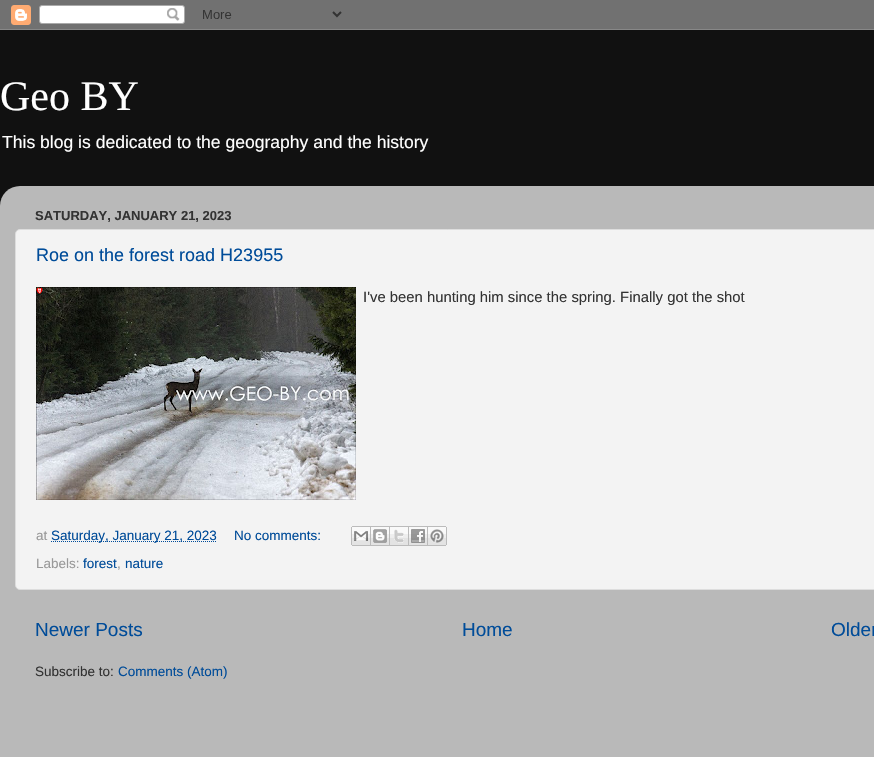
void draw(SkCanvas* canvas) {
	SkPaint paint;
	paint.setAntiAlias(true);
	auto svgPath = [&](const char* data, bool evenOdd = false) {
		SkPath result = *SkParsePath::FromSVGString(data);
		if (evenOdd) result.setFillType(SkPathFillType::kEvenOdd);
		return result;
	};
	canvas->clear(0xff111111);
	canvas->drawImageRect(SkImages::DeferredFromEncodedData(SkData::MakeFromFileName("img1.png")), SkRect::MakeXYWH(0, 0, 874, 30), SkSamplingOptions());
	SkFont f1(fontMgr->matchFamilyStyle("Liberation Serif", SkFontStyle::Normal()), 42);
	f1.setSubpixel(true);
	paint.setColor(0xffffffff);
	canvas->drawString("Geo BY", 0, 110, f1, paint);
	SkFont f2(fontMgr->matchFamilyStyle("Liberation Sans", SkFontStyle::Normal()), 17.55);
	f2.setSubpixel(true);
	canvas->drawString("This blog is dedicated to the geography and the history", 2, 148, f2, paint);
	canvas->drawImageRect(SkImages::DeferredFromEncodedData(SkData::MakeFromFileName("img2.png")), SkRect::MakeXYWH(0, 186, 874, 571), SkSamplingOptions());
	SkFont f3(fontMgr->matchFamilyStyle("Liberation Sans", SkFontStyle::Bold()), 13);
	f3.setSubpixel(true);
	paint.setColor(0xff333333);
	canvas->drawString("SATURDAY, JANUARY 21, 2023", 35, 220, f3, paint);
	paint.setColor(0xfff3f3f3);
	canvas->drawRoundRect(SkRect::MakeXYWH(15.5, 229.5, 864, 360), 4.5, 4.5, paint);
	paint.setStroke(true);
	paint.setStrokeWidth(1);
	paint.setColor(0xffdddddd);
	canvas->drawRoundRect(SkRect::MakeXYWH(15.5, 229.5, 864, 360), 4.5, 4.5, paint);
	SkFont f4(fontMgr->matchFamilyStyle("Liberation Sans", SkFontStyle::Normal()), 18);
	f4.setSubpixel(true);
	paint.setStroke(false);
	paint.setColor(0xff004c99);
	canvas->drawString("Roe on the forest road H23955", 36, 261, f4, paint);
	canvas->drawImageRect(SkImages::DeferredFromEncodedData(SkData::MakeFromFileName("img3.png")), SkRect::MakeXYWH(36, 287, 320, 213), SkSamplingOptions());
	SkFont f5(fontMgr->matchFamilyStyle("Liberation Sans", SkFontStyle::Normal()), 14.85);
	f5.setSubpixel(true);
	paint.setColor(0xff333333);
	canvas->drawString("I've been hunting him since the spring. Finally got the shot", 363, 302, f5, paint);
	SkFont f6(fontMgr->matchFamilyStyle("Liberation Sans", SkFontStyle::Normal()), 13.5);
	f6.setSubpixel(true);
	paint.setColor(0xff999999);
	canvas->drawString("at", 36, 540, f6, paint);
	paint.setStroke(true);
	paint.setColor(0xff004c99);
	paint.setPathEffect(SkDashPathEffect::Make({{1, 1}}, 0));
	canvas->drawPath(svgPath("M51 541.5H217"), paint);
	paint.setPathEffect(nullptr);
	paint.setStroke(false);
	canvas->drawString("Saturday, January 21, 2023", 51, 540, f6, paint);
	canvas->drawString("No comments:", 234, 540, f6, paint);
	canvas->drawImageRect(SkImages::DeferredFromEncodedData(SkData::MakeFromFileName("img4.png")), SkRect::MakeXYWH(351, 526, 20, 20), SkSamplingOptions());
	canvas->drawImageRect(SkImages::DeferredFromEncodedData(SkData::MakeFromFileName("img5.png")), SkRect::MakeXYWH(371, 526, 19, 20), SkSamplingOptions());
	canvas->drawImageRect(SkImages::DeferredFromEncodedData(SkData::MakeFromFileName("img6.png")), SkRect::MakeXYWH(390, 526, 19, 20), SkSamplingOptions());
	canvas->drawImageRect(SkImages::DeferredFromEncodedData(SkData::MakeFromFileName("img7.png")), SkRect::MakeXYWH(409, 526, 19, 20), SkSamplingOptions());
	canvas->drawImageRect(SkImages::DeferredFromEncodedData(SkData::MakeFromFileName("img8.png")), SkRect::MakeXYWH(428, 526, 19, 20), SkSamplingOptions());
	paint.setColor(0xff999999);
	canvas->drawString("Labels:", 36, 568, f6, paint);
	paint.setColor(0xff004c99);
	canvas->drawString("forest", 83, 568, f6, paint);
	paint.setColor(0xff999999);
	canvas->drawString(",", 117, 568, f6, paint);
	paint.setColor(0xff004c99);
	canvas->drawString("nature", 125, 568, f6, paint);
	SkFont f7(fontMgr->matchFamilyStyle("Liberation Sans", SkFontStyle::Normal()), 19);
	f7.setSubpixel(true);
	canvas->drawString("Newer Posts", 35, 636, f7, paint);
	canvas->drawString("Home", 462, 636, f7, paint);
	canvas->drawString("Older", 831, 636, f7, paint);
	paint.setColor(0xff333333);
	canvas->drawString("Subscribe to:", 35, 676, f6, paint);
	paint.setColor(0xff004c99);
	canvas->drawString("Comments (Atom)", 118, 676, f6, paint);
}
